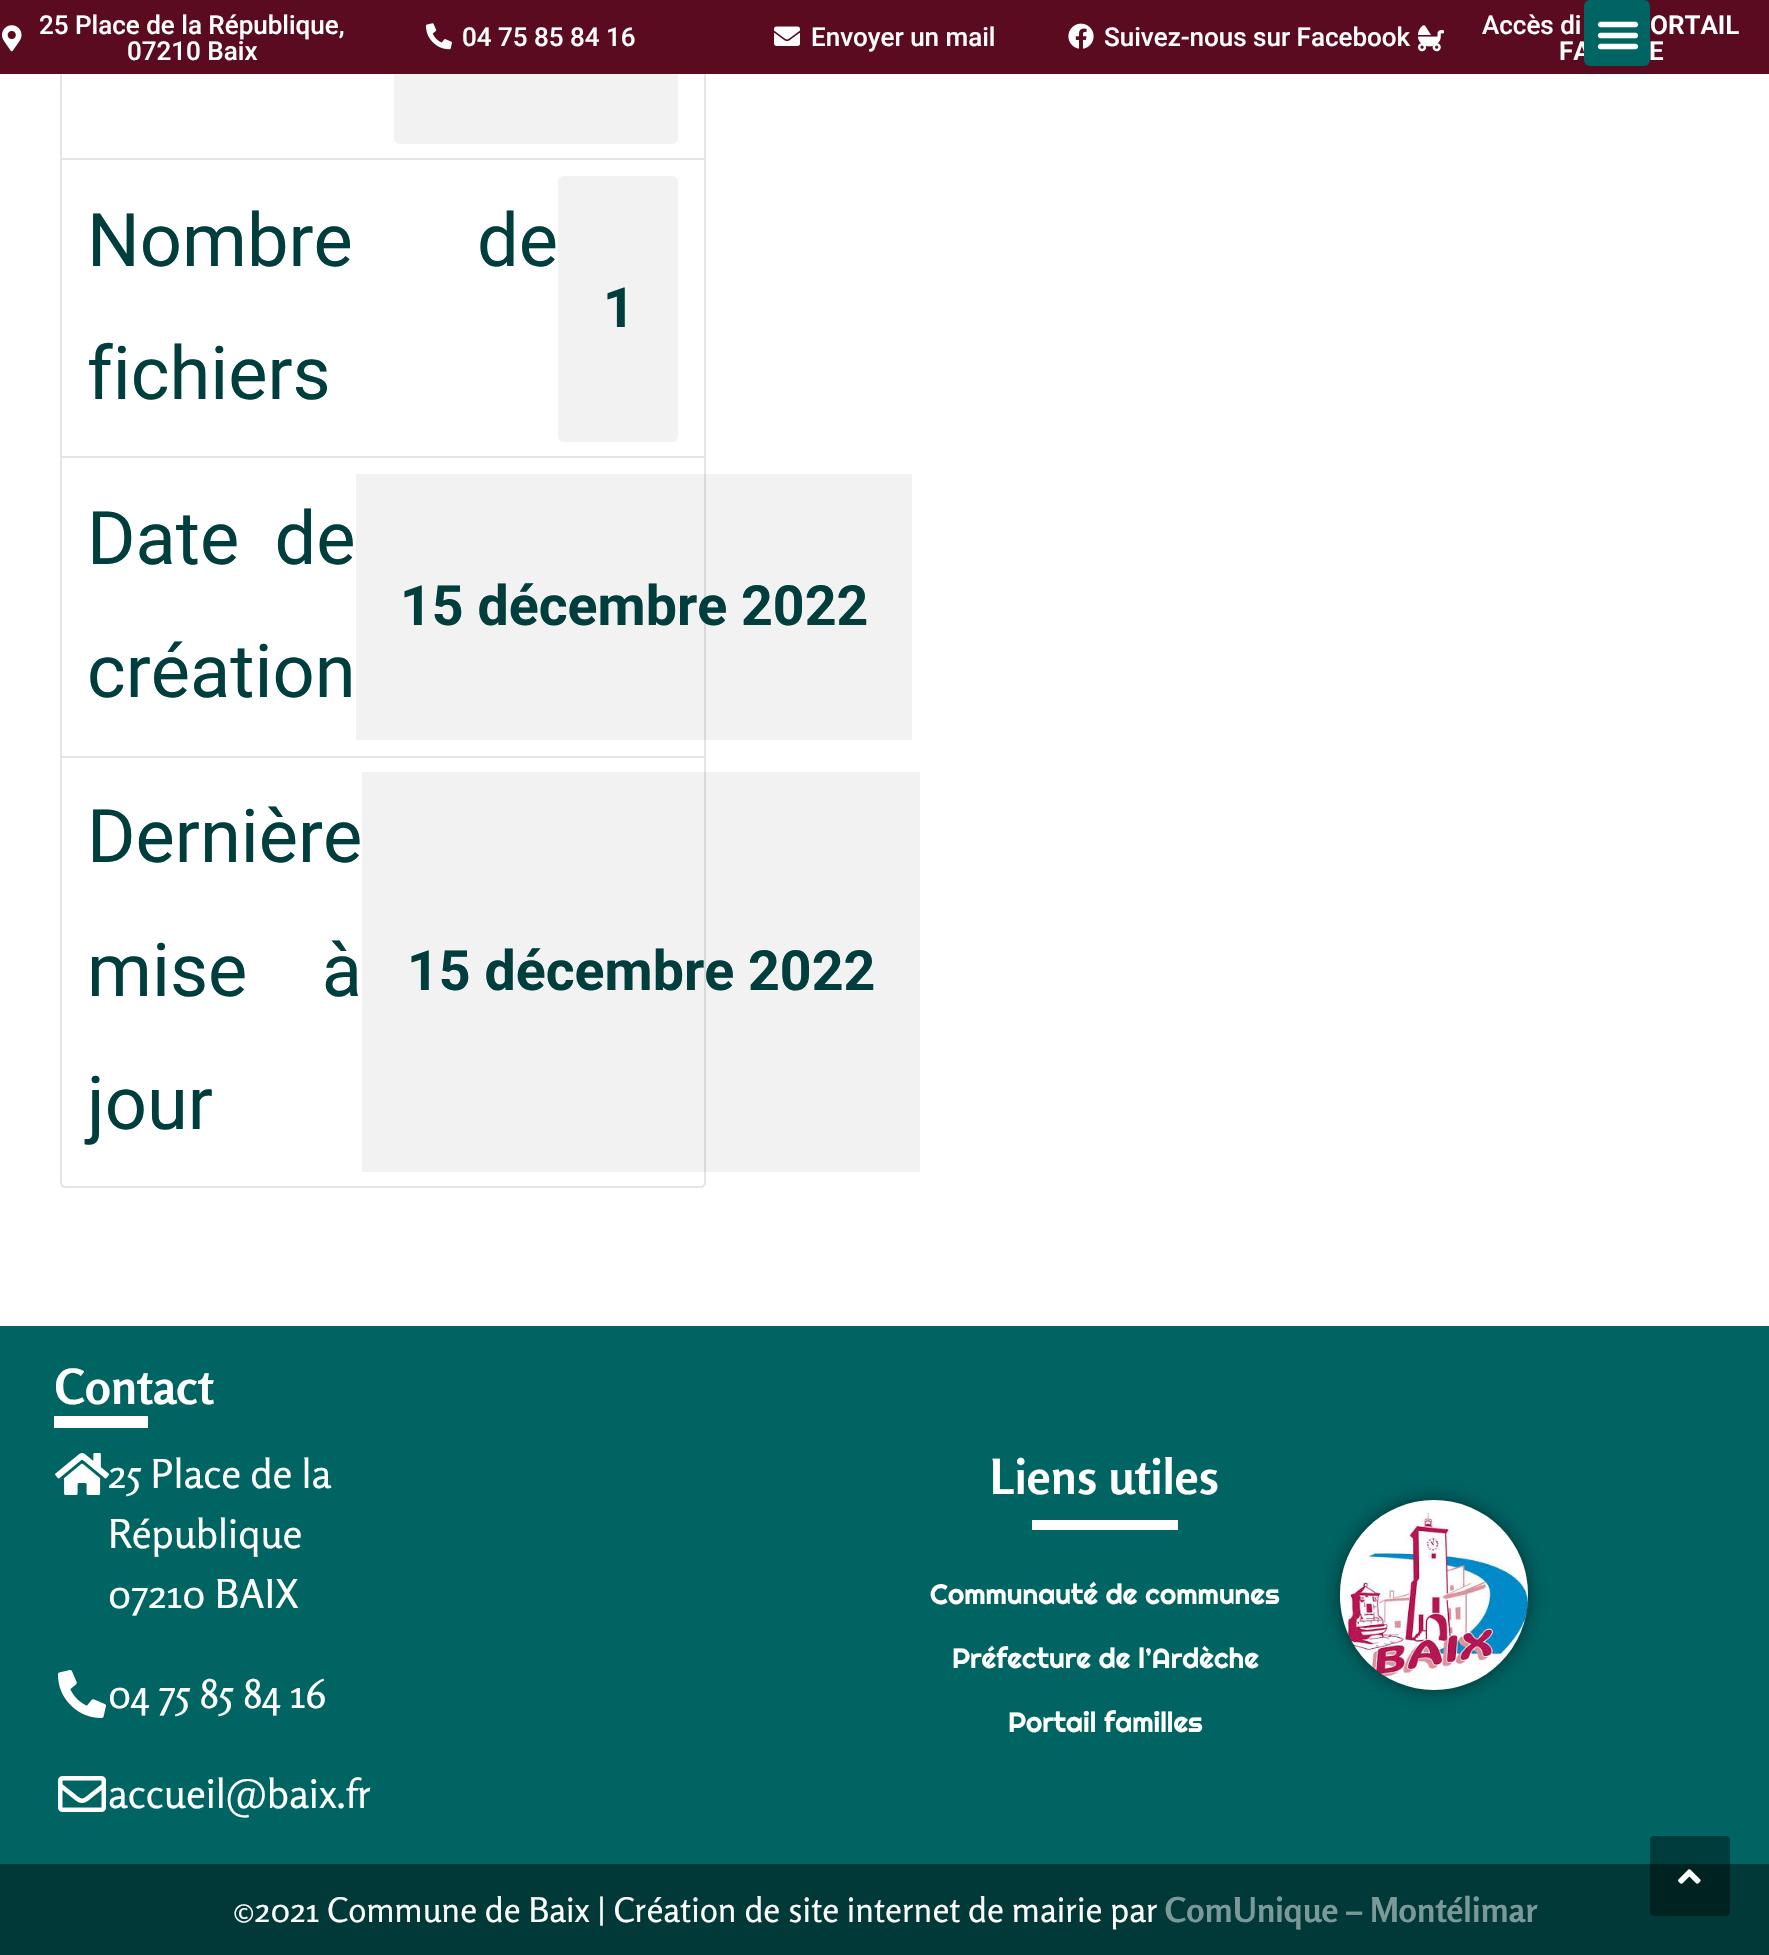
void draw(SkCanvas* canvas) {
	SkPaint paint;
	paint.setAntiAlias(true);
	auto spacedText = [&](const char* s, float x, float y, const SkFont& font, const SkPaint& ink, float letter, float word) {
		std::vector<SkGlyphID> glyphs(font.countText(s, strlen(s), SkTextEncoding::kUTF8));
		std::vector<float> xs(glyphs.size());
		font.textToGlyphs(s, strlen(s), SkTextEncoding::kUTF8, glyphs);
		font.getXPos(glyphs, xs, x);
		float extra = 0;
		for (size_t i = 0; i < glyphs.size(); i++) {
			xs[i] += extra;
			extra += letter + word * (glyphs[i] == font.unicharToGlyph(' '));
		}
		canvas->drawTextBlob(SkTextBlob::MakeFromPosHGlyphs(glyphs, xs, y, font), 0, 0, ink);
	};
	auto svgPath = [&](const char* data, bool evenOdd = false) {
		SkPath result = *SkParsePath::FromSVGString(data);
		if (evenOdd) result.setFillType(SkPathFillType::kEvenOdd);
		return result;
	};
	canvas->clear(0xffffffff);
	paint.setStroke(true);
	paint.setStrokeWidth(2);
	paint.setColor(0xffe5e5e5);
	canvas->drawRect(SkRect::MakeXYWH(61, -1, 644, 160), paint);
	paint.setStroke(false);
	paint.setColor(0xfff2f2f2);
	canvas->drawRoundRect(SkRect::MakeXYWH(394, -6, 284, 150), 6, 6, paint);
	paint.setColor(0xff5a0b20);
	canvas->drawRect(SkRect::MakeXYWH(0, 0, 1769, 74), paint);
	SkFont f1(fontMgr->matchFamilyStyle("Roboto", SkFontStyle(600, SkFontStyle::kNormal_Width, SkFontStyle::kUpright_Slant)), 26);
	f1.setSubpixel(true);
	paint.setColor(0xffffffff);
	canvas->drawString("FA", 1559, 60, f1, paint);
	paint.setColor(0xff006463);
	canvas->drawRoundRect(SkRect::MakeXYWH(1584, 0, 66, 66), 6, 6, paint);
	canvas->drawImageRect(SkImages::DeferredFromEncodedData(SkData::MakeFromFileName("img1.png")), SkRect::MakeXYWH(1597, 21, 42, 29), SkSamplingOptions());
	canvas->drawImageRect(SkImages::DeferredFromEncodedData(SkData::MakeFromFileName("img2.png")), SkRect::MakeXYWH(2, 25, 20, 27), SkSamplingOptions());
	SkFont f2(fontMgr->matchFamilyStyle("Roboto", SkFontStyle(500, SkFontStyle::kNormal_Width, SkFontStyle::kUpright_Slant)), 26);
	f2.setSubpixel(true);
	paint.setColor(0xffffffff);
	canvas->drawString("25 Place de la République,", 39, 34, f2, paint);
	canvas->drawString("07210 Baix", 127, 60, f2, paint);
	canvas->drawImageRect(SkImages::DeferredFromEncodedData(SkData::MakeFromFileName("img3.png")), SkRect::MakeXYWH(426, 23, 26, 27), SkSamplingOptions());
	canvas->drawString("04 75 85 84 16", 462, 46, f2, paint);
	canvas->drawImageRect(SkImages::DeferredFromEncodedData(SkData::MakeFromFileName("img4.png")), SkRect::MakeXYWH(774, 26, 26, 20), SkSamplingOptions());
	canvas->drawString("Envoyer un mail", 811, 46, f2, paint);
	canvas->drawImageRect(SkImages::DeferredFromEncodedData(SkData::MakeFromFileName("img5.png")), SkRect::MakeXYWH(1068, 23, 26, 26), SkSamplingOptions());
	canvas->drawString("Suivez-nous sur Facebook", 1104, 46, f2, paint);
	canvas->drawImageRect(SkImages::DeferredFromEncodedData(SkData::MakeFromFileName("img6.png")), SkRect::MakeXYWH(1418, 25, 26, 27), SkSamplingOptions());
	canvas->drawString("Accès di", 1482, 34, f2, paint);
	canvas->drawString("ORTAIL", 1650, 34, f1, paint);
	canvas->drawString("E", 1649, 60, f1, paint);
	paint.setStroke(true);
	paint.setColor(0xffe5e5e5);
	canvas->drawRect(SkRect::MakeXYWH(61, 159, 644, 298), paint);
	SkFont f3(fontMgr->matchFamilyStyle("Roboto", SkFontStyle::Normal()), 74);
	f3.setSubpixel(true);
	paint.setStroke(false);
	paint.setColor(0xff003e3d);
	spacedText("Nombre de", 87, 266, f3, paint, 0, 106);
	paint.setColor(0xfff2f2f2);
	canvas->drawRoundRect(SkRect::MakeXYWH(558, 176, 120, 266), 6, 6, paint);
	SkFont f4(fontMgr->matchFamilyStyle("Roboto", SkFontStyle::Bold()), 55.5);
	f4.setSubpixel(true);
	paint.setColor(0xff003e3d);
	canvas->drawString("1", 603, 327, f4, paint);
	canvas->drawString("fichiers", 87, 399, f3, paint);
	paint.setStroke(true);
	paint.setColor(0xffe5e5e5);
	canvas->drawRect(SkRect::MakeXYWH(61, 457, 644, 300), paint);
	paint.setStroke(false);
	paint.setColor(0xff003e3d);
	spacedText("Date de", 87, 564, f3, paint, 0, 17);
	paint.setColor(0x0d000000);
	canvas->drawRect(SkRect::MakeXYWH(356, 474, 556, 266), paint);
	paint.setColor(0xff003e3d);
	canvas->drawString("15 décembre 2022", 400, 625, f4, paint);
	canvas->drawString("création", 87, 697, f3, paint);
	paint.setColor(0xffffffff);
	canvas->drawPath(svgPath("M61 757H705V1183C705 1185 703 1187 701 1187H65C63 1187 61 1185 61 1183Z"), paint);
	paint.setStroke(true);
	paint.setColor(0xffe5e5e5);
	canvas->drawPath(svgPath("M61 757H705V1183C705 1185 703 1187 701 1187H65C63 1187 61 1185 61 1183Z"), paint);
	paint.setStroke(false);
	paint.setColor(0xff003e3d);
	canvas->drawString("Dernière", 87, 862, f3, paint);
	spacedText("mise à", 87, 996, f3, paint, 0, 56);
	paint.setColor(0x0d000000);
	canvas->drawRect(SkRect::MakeXYWH(362, 772, 558, 400), paint);
	paint.setColor(0xff003e3d);
	canvas->drawString("15 décembre 2022", 407, 990, f4, paint);
	canvas->drawString("jour", 87, 1129, f3, paint);
	paint.setColor(0xff006463);
	canvas->drawRect(SkRect::MakeXYWH(0, 1326, 1769, 538), paint);
	SkFont f5(fontMgr->matchFamilyStyle("Rosario", SkFontStyle::Bold()), 48);
	f5.setSubpixel(true);
	paint.setColor(0xffffffff);
	canvas->drawString("Contact", 55, 1404, f5, paint);
	canvas->drawRect(SkRect::MakeXYWH(54, 1416, 94, 12), paint);
	canvas->drawImageRect(SkImages::DeferredFromEncodedData(SkData::MakeFromFileName("img7.png")), SkRect::MakeXYWH(55, 1453, 55, 42), SkSamplingOptions());
	SkFont f6(fontMgr->matchFamilyStyle("Rosario", SkFontStyle::Normal()), 40);
	f6.setSubpixel(true);
	canvas->drawString("25 Place de la", 108, 1488, f6, paint);
	canvas->drawString("République", 108, 1548, f6, paint);
	canvas->drawString("07210 BAIX", 108, 1608, f6, paint);
	canvas->drawImageRect(SkImages::DeferredFromEncodedData(SkData::MakeFromFileName("img8.png")), SkRect::MakeXYWH(58, 1670, 48, 48), SkSamplingOptions());
	canvas->drawString("04 75 85 84 16", 108, 1708, f6, paint);
	canvas->drawImageRect(SkImages::DeferredFromEncodedData(SkData::MakeFromFileName("img9.png")), SkRect::MakeXYWH(58, 1776, 48, 36), SkSamplingOptions());
	canvas->drawString("accueil@baix.fr", 108, 1808, f6, paint);
	canvas->drawString("Liens utiles", 990, 1494, f5, paint);
	canvas->drawRect(SkRect::MakeXYWH(1032, 1520, 146, 10), paint);
	SkFont f7(fontMgr->matchFamilyStyle("Righteous", SkFontStyle::Normal()), 28);
	f7.setSubpixel(true);
	canvas->drawString("Communauté de communes", 930, 1604, f7, paint);
	canvas->drawString("Préfecture de l’Ardèche", 952, 1668, f7, paint);
	canvas->drawString("Portail familles", 1008, 1732, f7, paint);
	paint.setColor(0x80000000);
	paint.setMaskFilter(SkMaskFilter::MakeBlur(kNormal_SkBlurStyle, 10));
	canvas->drawRoundRect(SkRect::MakeXYWH(1340, 1500, 188, 190), 94, 94, paint);
	paint.setMaskFilter(nullptr);
	canvas->drawImageRect(SkImages::DeferredFromEncodedData(SkData::MakeFromFileName("img10.png")), SkRect::MakeXYWH(1340, 1500, 188, 190), SkSamplingOptions());
	paint.setColor(0xff003938);
	canvas->drawRect(SkRect::MakeXYWH(0, 1864, 1769, 91), paint);
	SkFont f8(fontMgr->matchFamilyStyle("Rosario", SkFontStyle::Normal()), 34);
	f8.setSubpixel(true);
	paint.setColor(0xffffffff);
	canvas->drawString("©2021 Commune de Baix | Création de site internet de mairie par", 233, 1922, f8, paint);
	SkFont f9(fontMgr->matchFamilyStyle("Rosario", SkFontStyle::Bold()), 34);
	f9.setSubpixel(true);
	paint.setColor(0xff7c9999);
	canvas->drawString("ComUnique – Montélimar", 1165, 1922, f9, paint);
	paint.setColor(0x66000000);
	canvas->drawRoundRect(SkRect::MakeXYWH(1650, 1836, 80, 80), 4, 4, paint);
	canvas->drawImageRect(SkImages::DeferredFromEncodedData(SkData::MakeFromFileName("img11.png")), SkRect::MakeXYWH(1678, 1869, 23, 15), SkSamplingOptions());
}
